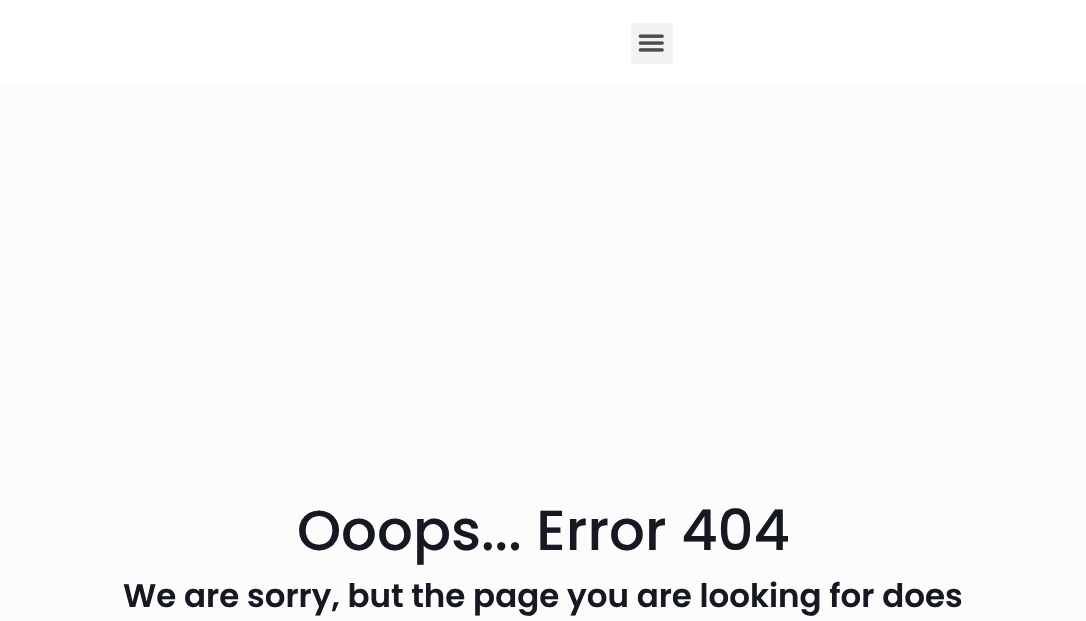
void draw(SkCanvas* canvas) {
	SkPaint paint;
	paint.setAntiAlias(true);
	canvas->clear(0xfffcfcfc);
	paint.setColor(0xffffffff);
	canvas->drawRect(SkRect::MakeXYWH(0, 0, 1086, 86), paint);
	paint.setColor(0xfff2f2f2);
	canvas->drawRoundRect(SkRect::MakeXYWH(631, 23, 42, 41), 4, 4, paint);
	canvas->drawImageRect(SkImages::DeferredFromEncodedData(SkData::MakeFromFileName("img1.png")), SkRect::MakeXYWH(638, 34, 26, 18), SkSamplingOptions());
	SkFont f1(fontMgr->matchFamilyStyle("Poppins", SkFontStyle(500, SkFontStyle::kNormal_Width, SkFontStyle::kUpright_Slant)), 56.25);
	f1.setSubpixel(true);
	paint.setColor(0xff161922);
	canvas->drawString("Ooops... Error 404", 297, 550, f1, paint);
	SkFont f2(fontMgr->matchFamilyStyle("Poppins", SkFontStyle(600, SkFontStyle::kNormal_Width, SkFontStyle::kUpright_Slant)), 32.5);
	f2.setSubpixel(true);
	canvas->drawString("We are sorry, but the page you are looking for does", 123, 607, f2, paint);
}
